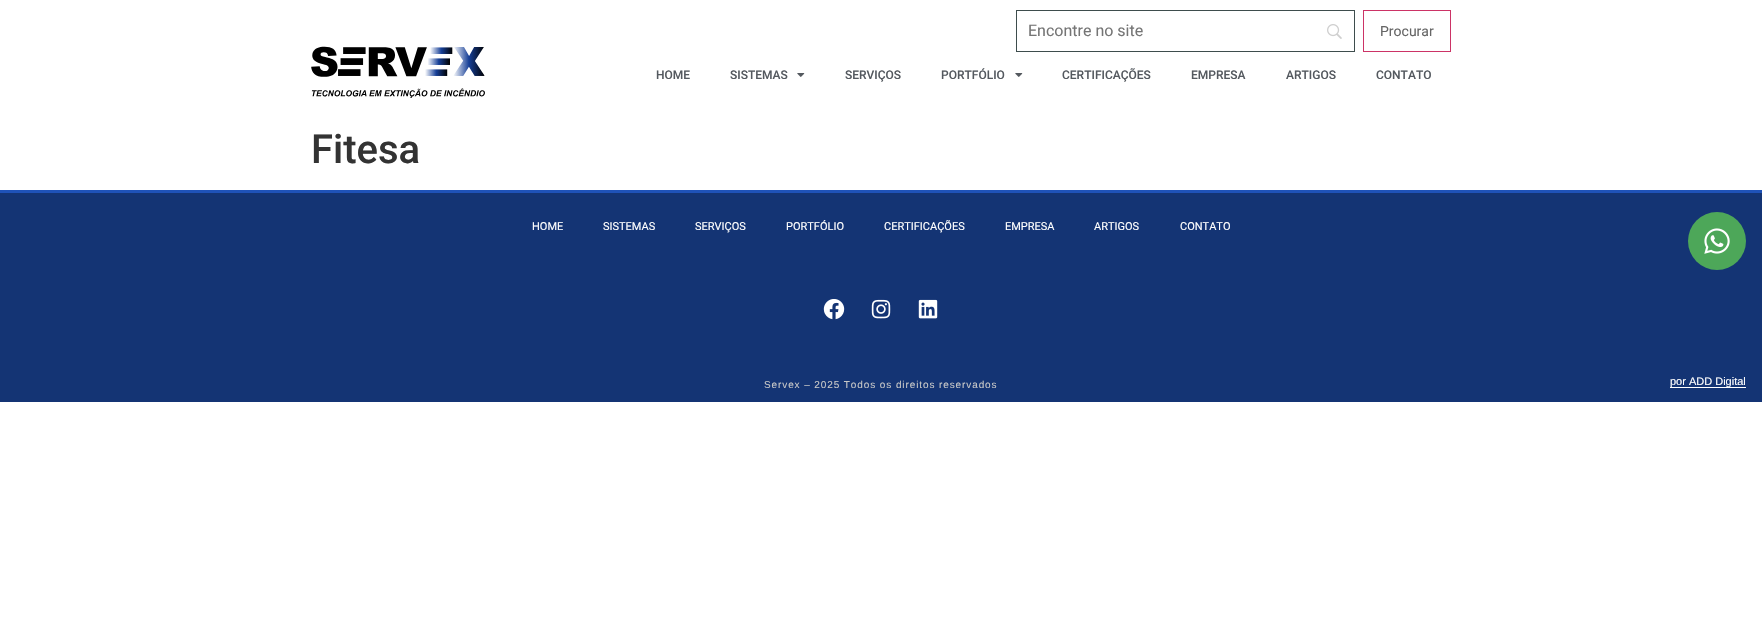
void draw(SkCanvas* canvas) {
	SkPaint paint;
	paint.setAntiAlias(true);
	auto spacedText = [&](const char* s, float x, float y, const SkFont& font, const SkPaint& ink, float letter, float word) {
		std::vector<SkGlyphID> glyphs(font.countText(s, strlen(s), SkTextEncoding::kUTF8));
		std::vector<float> xs(glyphs.size());
		font.textToGlyphs(s, strlen(s), SkTextEncoding::kUTF8, glyphs);
		font.getXPos(glyphs, xs, x);
		float extra = 0;
		for (size_t i = 0; i < glyphs.size(); i++) {
			xs[i] += extra;
			extra += letter + word * (glyphs[i] == font.unicharToGlyph(' '));
		}
		canvas->drawTextBlob(SkTextBlob::MakeFromPosHGlyphs(glyphs, xs, y, font), 0, 0, ink);
	};
	canvas->clear(0xffffffff);
	canvas->drawImageRect(SkImages::DeferredFromEncodedData(SkData::MakeFromFileName("img1.png")), SkRect::MakeXYWH(311, 46, 174, 52), SkSamplingOptions());
	canvas->drawImageRect(SkImages::DeferredFromEncodedData(SkData::MakeFromFileName("img2.png")), SkRect::MakeXYWH(1327, 24, 15, 15), SkSamplingOptions());
	paint.setStroke(true);
	paint.setStrokeWidth(1);
	paint.setColor(0xff3e4d4d);
	canvas->drawRect(SkRect::MakeXYWH(1016.5, 10.5, 338, 41), paint);
	SkFont f1(fontMgr->matchFamilyStyle("Roboto", SkFontStyle::Normal()), 16);
	f1.setSubpixel(true);
	paint.setStroke(false);
	paint.setColor(0xff757575);
	canvas->drawString("Encontre no site", 1028, 36, f1, paint);
	paint.setStroke(true);
	paint.setColor(0xffcc3366);
	canvas->drawRect(SkRect::MakeXYWH(1363.5, 10.5, 87, 41), paint);
	SkFont f2(fontMgr->matchFamilyStyle("Roboto", SkFontStyle::Normal()), 14);
	f2.setSubpixel(true);
	paint.setStroke(false);
	paint.setColor(0xff666666);
	canvas->drawString("Procurar", 1380, 36, f2, paint);
	SkFont f3(fontMgr->matchFamilyStyle("Roboto", SkFontStyle(500, SkFontStyle::kNormal_Width, SkFontStyle::kUpright_Slant)), 12);
	f3.setSubpixel(true);
	paint.setColor(0xff54595f);
	canvas->drawString("HOME", 656, 79, f3, paint);
	canvas->drawString("SISTEMAS", 730, 79, f3, paint);
	canvas->drawImageRect(SkImages::DeferredFromEncodedData(SkData::MakeFromFileName("img3.png")), SkRect::MakeXYWH(797, 73, 8, 4), SkSamplingOptions());
	canvas->drawString("SERVIÇOS", 845, 79, f3, paint);
	canvas->drawString("PORTFÓLIO", 941, 79, f3, paint);
	canvas->drawImageRect(SkImages::DeferredFromEncodedData(SkData::MakeFromFileName("img3.png")), SkRect::MakeXYWH(1015, 73, 8, 4), SkSamplingOptions());
	canvas->drawString("CERTIFICAÇÕES", 1062, 79, f3, paint);
	canvas->drawString("EMPRESA", 1191, 79, f3, paint);
	canvas->drawString("ARTIGOS", 1286, 79, f3, paint);
	canvas->drawString("CONTATO", 1376, 79, f3, paint);
	SkFont f4(fontMgr->matchFamilyStyle("Roboto", SkFontStyle(500, SkFontStyle::kNormal_Width, SkFontStyle::kUpright_Slant)), 40);
	f4.setSubpixel(true);
	paint.setColor(0xff333333);
	canvas->drawString("Fitesa", 311, 163, f4, paint);
	paint.setColor(0xff143474);
	canvas->drawRect(SkRect::MakeXYWH(0, 193, 1762, 209), paint);
	paint.setColor(0xff1f52b8);
	canvas->drawRect(SkRect::MakeXYWH(0, 190, 1762, 3), paint);
	SkFont f5(fontMgr->matchFamilyStyle("Roboto", SkFontStyle::Normal()), 11);
	f5.setSubpixel(true);
	paint.setColor(0xffffffff);
	canvas->drawString("HOME", 532, 230, f5, paint);
	canvas->drawString("SISTEMAS", 603, 230, f5, paint);
	canvas->drawString("SERVIÇOS", 695, 230, f5, paint);
	canvas->drawString("PORTFÓLIO", 786, 230, f5, paint);
	canvas->drawString("CERTIFICAÇÕES", 884, 230, f5, paint);
	canvas->drawString("EMPRESA", 1005, 230, f5, paint);
	canvas->drawString("ARTIGOS", 1094, 230, f5, paint);
	canvas->drawString("CONTATO", 1180, 230, f5, paint);
	canvas->drawImageRect(SkImages::DeferredFromEncodedData(SkData::MakeFromFileName("img4.png")), SkRect::MakeXYWH(823, 299, 22, 21), SkSamplingOptions());
	canvas->drawImageRect(SkImages::DeferredFromEncodedData(SkData::MakeFromFileName("img5.png")), SkRect::MakeXYWH(871, 299, 20, 20), SkSamplingOptions());
	canvas->drawImageRect(SkImages::DeferredFromEncodedData(SkData::MakeFromFileName("img6.png")), SkRect::MakeXYWH(918, 299, 20, 20), SkSamplingOptions());
	SkFont f6(fontMgr->matchFamilyStyle("Liberation Sans", SkFontStyle::Normal()), 10);
	f6.setSubpixel(true);
	paint.setColor(0xffc7c7c7);
	spacedText("Servex – 2025 Todos os direitos reservados", 764, 388, f6, paint, 0.9, 0);
	paint.setColor(0xff4da759);
	canvas->drawCircle(1717, 241, 29, paint);
	canvas->drawImageRect(SkImages::DeferredFromEncodedData(SkData::MakeFromFileName("img7.png")), SkRect::MakeXYWH(1704, 228, 26, 26), SkSamplingOptions());
	paint.setColor(0xffffffff);
	canvas->drawRect(SkRect::MakeXYWH(1670, 387, 76, 1), paint);
	SkFont f7(fontMgr->matchFamilyStyle("Liberation Sans", SkFontStyle::Normal()), 11);
	f7.setSubpixel(true);
	canvas->drawString("por ADD Digital", 1670, 385, f7, paint);
}
